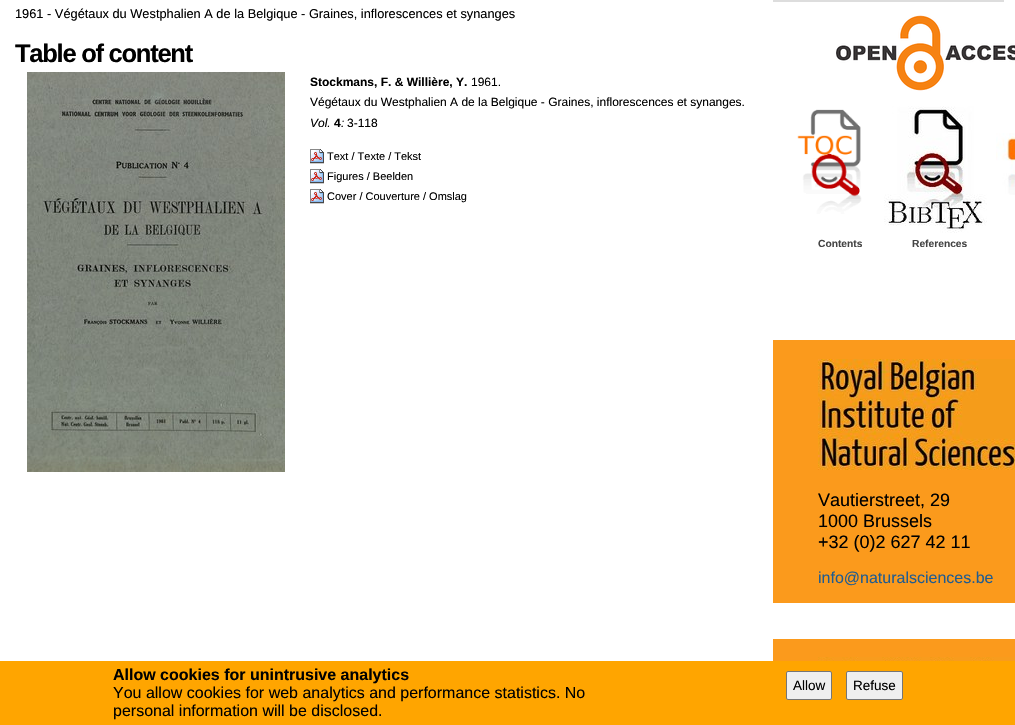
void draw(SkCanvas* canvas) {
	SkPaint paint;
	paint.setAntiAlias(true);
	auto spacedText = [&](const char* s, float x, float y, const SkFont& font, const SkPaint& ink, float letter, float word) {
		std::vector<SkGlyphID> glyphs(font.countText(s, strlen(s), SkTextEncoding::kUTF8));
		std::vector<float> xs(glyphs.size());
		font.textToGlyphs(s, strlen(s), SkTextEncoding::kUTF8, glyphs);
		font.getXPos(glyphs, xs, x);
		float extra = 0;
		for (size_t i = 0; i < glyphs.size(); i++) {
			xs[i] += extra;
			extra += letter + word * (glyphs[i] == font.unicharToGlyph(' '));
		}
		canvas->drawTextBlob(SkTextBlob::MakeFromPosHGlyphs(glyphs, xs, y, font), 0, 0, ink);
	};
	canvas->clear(0xffffffff);
	SkFont f1(fontMgr->matchFamilyStyle("Liberation Sans", SkFontStyle::Normal()), 12.8);
	f1.setSubpixel(true);
	paint.setColor(0xff000000);
	canvas->drawString("1961 - Végétaux du Westphalien A de la Belgique - Graines, inflorescences et synanges", 15, 18, f1, paint);
	SkFont f2(fontMgr->matchFamilyStyle("Liberation Sans", SkFontStyle::Bold()), 25.5);
	f2.setSubpixel(true);
	spacedText("Table of content", 15, 62, f2, paint, -1.25, 0);
	canvas->drawImageRect(SkImages::DeferredFromEncodedData(SkData::MakeFromFileName("img1.png")), SkRect::MakeXYWH(27, 72, 258, 400), SkSamplingOptions());
	SkFont f3(fontMgr->matchFamilyStyle("Liberation Sans", SkFontStyle::Bold()), 12);
	f3.setSubpixel(true);
	canvas->drawString("Stockmans, F. & Willière, Y.", 310, 86, f3, paint);
	SkFont f4(fontMgr->matchFamilyStyle("Liberation Sans", SkFontStyle::Normal()), 12);
	f4.setSubpixel(true);
	canvas->drawString("1961.", 471, 86, f4, paint);
	canvas->drawString("Végétaux du Westphalien A de la Belgique - Graines, inflorescences et synanges.", 310, 106, f4, paint);
	SkFont f5(fontMgr->matchFamilyStyle("Liberation Sans", SkFontStyle::Italic()), 12);
	f5.setSubpixel(true);
	canvas->drawString("Vol.", 310, 127, f5, paint);
	canvas->drawString("4", 334, 127, f3, paint);
	canvas->drawString(":", 341, 127, f5, paint);
	canvas->drawString("3-118", 347, 127, f4, paint);
	canvas->drawImageRect(SkImages::DeferredFromEncodedData(SkData::MakeFromFileName("img2.png")), SkRect::MakeXYWH(310, 149, 14, 14), SkSamplingOptions());
	SkFont f6(fontMgr->matchFamilyStyle("Liberation Sans", SkFontStyle::Normal()), 11);
	f6.setSubpixel(true);
	canvas->drawString("Text / Texte / Tekst", 327, 160, f6, paint);
	paint.setColor(0xffcccccc);
	canvas->drawRect(SkRect::MakeXYWH(310, 163, 14, 1), paint);
	canvas->drawImageRect(SkImages::DeferredFromEncodedData(SkData::MakeFromFileName("img2.png")), SkRect::MakeXYWH(310, 169, 14, 14), SkSamplingOptions());
	paint.setColor(0xff000000);
	canvas->drawString("Figures / Beelden", 327, 180, f6, paint);
	paint.setColor(0xffcccccc);
	canvas->drawRect(SkRect::MakeXYWH(310, 183, 14, 1), paint);
	canvas->drawImageRect(SkImages::DeferredFromEncodedData(SkData::MakeFromFileName("img2.png")), SkRect::MakeXYWH(310, 189, 14, 14), SkSamplingOptions());
	paint.setColor(0xff000000);
	canvas->drawString("Cover / Couverture / Omslag", 327, 200, f6, paint);
	paint.setColor(0xffcccccc);
	canvas->drawRect(SkRect::MakeXYWH(310, 203, 14, 1), paint);
	paint.setColor(0xffdddddd);
	canvas->drawRect(SkRect::MakeXYWH(773, 0, 231, 2), paint);
	canvas->drawImageRect(SkImages::DeferredFromEncodedData(SkData::MakeFromFileName("img3.png")), SkRect::MakeXYWH(836, 15, 179, 76), SkSamplingOptions());
	canvas->drawImageRect(SkImages::DeferredFromEncodedData(SkData::MakeFromFileName("img4.png")), SkRect::MakeXYWH(797, 109, 65, 105), SkSamplingOptions());
	canvas->drawImageRect(SkImages::DeferredFromEncodedData(SkData::MakeFromFileName("img5.png")), SkRect::MakeXYWH(884, 106, 103, 127), SkSamplingOptions());
	canvas->drawImageRect(SkImages::DeferredFromEncodedData(SkData::MakeFromFileName("img6.png")), SkRect::MakeXYWH(996, 133, 19, 62), SkSamplingOptions());
	SkFont f7(fontMgr->matchFamilyStyle("Liberation Sans", SkFontStyle::Bold()), 10.25);
	f7.setSubpixel(true);
	paint.setColor(0xff444444);
	canvas->drawString("Contents", 818, 247, f7, paint);
	canvas->drawString("References", 912, 247, f7, paint);
	paint.setColor(0xfffb9a1c);
	canvas->drawRect(SkRect::MakeXYWH(773, 340, 242, 150), paint);
	canvas->drawImageRect(SkImages::DeferredFromEncodedData(SkData::MakeFromFileName("img7.png")), SkRect::MakeXYWH(818, 359, 197, 111), SkSamplingOptions());
	canvas->drawRect(SkRect::MakeXYWH(773, 490, 242, 63), paint);
	SkFont f8(fontMgr->matchFamilyStyle("Liberation Sans", SkFontStyle::Normal()), 18);
	f8.setSubpixel(true);
	paint.setColor(0xff000000);
	canvas->drawString("Vautierstreet, 29", 818, 506, f8, paint);
	canvas->drawString("1000 Brussels", 818, 527, f8, paint);
	canvas->drawString("+32 (0)2 627 42 11", 818, 548, f8, paint);
	paint.setColor(0xfffb9a1c);
	canvas->drawRect(SkRect::MakeXYWH(773, 553, 242, 50), paint);
	SkFont f9(fontMgr->matchFamilyStyle("Liberation Sans", SkFontStyle::Normal()), 16);
	f9.setSubpixel(true);
	paint.setColor(0xff205c90);
	canvas->drawString("info@naturalsciences.be", 818, 583, f9, paint);
	paint.setColor(0xfffb9a1c);
	canvas->drawRect(SkRect::MakeXYWH(773, 639, 45, 22), paint);
	canvas->drawRect(SkRect::MakeXYWH(818, 639, 197, 18), paint);
	canvas->drawImageRect(SkImages::DeferredFromEncodedData(SkData::MakeFromFileName("img8.png")), SkRect::MakeXYWH(818, 657, 197, 4), SkSamplingOptions());
	paint.setColor(0xffffa500);
	canvas->drawRect(SkRect::MakeXYWH(0, 661, 1015, 64), paint);
	SkFont f10(fontMgr->matchFamilyStyle("Liberation Sans", SkFontStyle::Bold()), 16);
	f10.setSubpixel(true);
	paint.setColor(0xff000000);
	canvas->drawString("Allow cookies for unintrusive analytics", 113, 680, f10, paint);
	canvas->drawString("You allow cookies for web analytics and performance statistics. No", 113, 698, f9, paint);
	canvas->drawString("personal information will be disclosed.", 113, 716, f9, paint);
	paint.setColor(0xffefefef);
	canvas->drawRoundRect(SkRect::MakeXYWH(786.5, 671.5, 45, 28), 1.5, 1.5, paint);
	paint.setStroke(true);
	paint.setStrokeWidth(1);
	paint.setColor(0xff767676);
	canvas->drawRoundRect(SkRect::MakeXYWH(786.5, 671.5, 45, 28), 1.5, 1.5, paint);
	SkFont f11(fontMgr->matchFamilyStyle("Liberation Sans", SkFontStyle::Normal()), 13.5);
	f11.setSubpixel(true);
	paint.setStroke(false);
	paint.setColor(0xff000000);
	canvas->drawString("Allow", 793, 690, f11, paint);
	paint.setColor(0xffefefef);
	canvas->drawRoundRect(SkRect::MakeXYWH(846.5, 671.5, 56, 28), 1.5, 1.5, paint);
	paint.setStroke(true);
	paint.setColor(0xff767676);
	canvas->drawRoundRect(SkRect::MakeXYWH(846.5, 671.5, 56, 28), 1.5, 1.5, paint);
	paint.setStroke(false);
	paint.setColor(0xff000000);
	canvas->drawString("Refuse", 853, 690, f11, paint);
}
